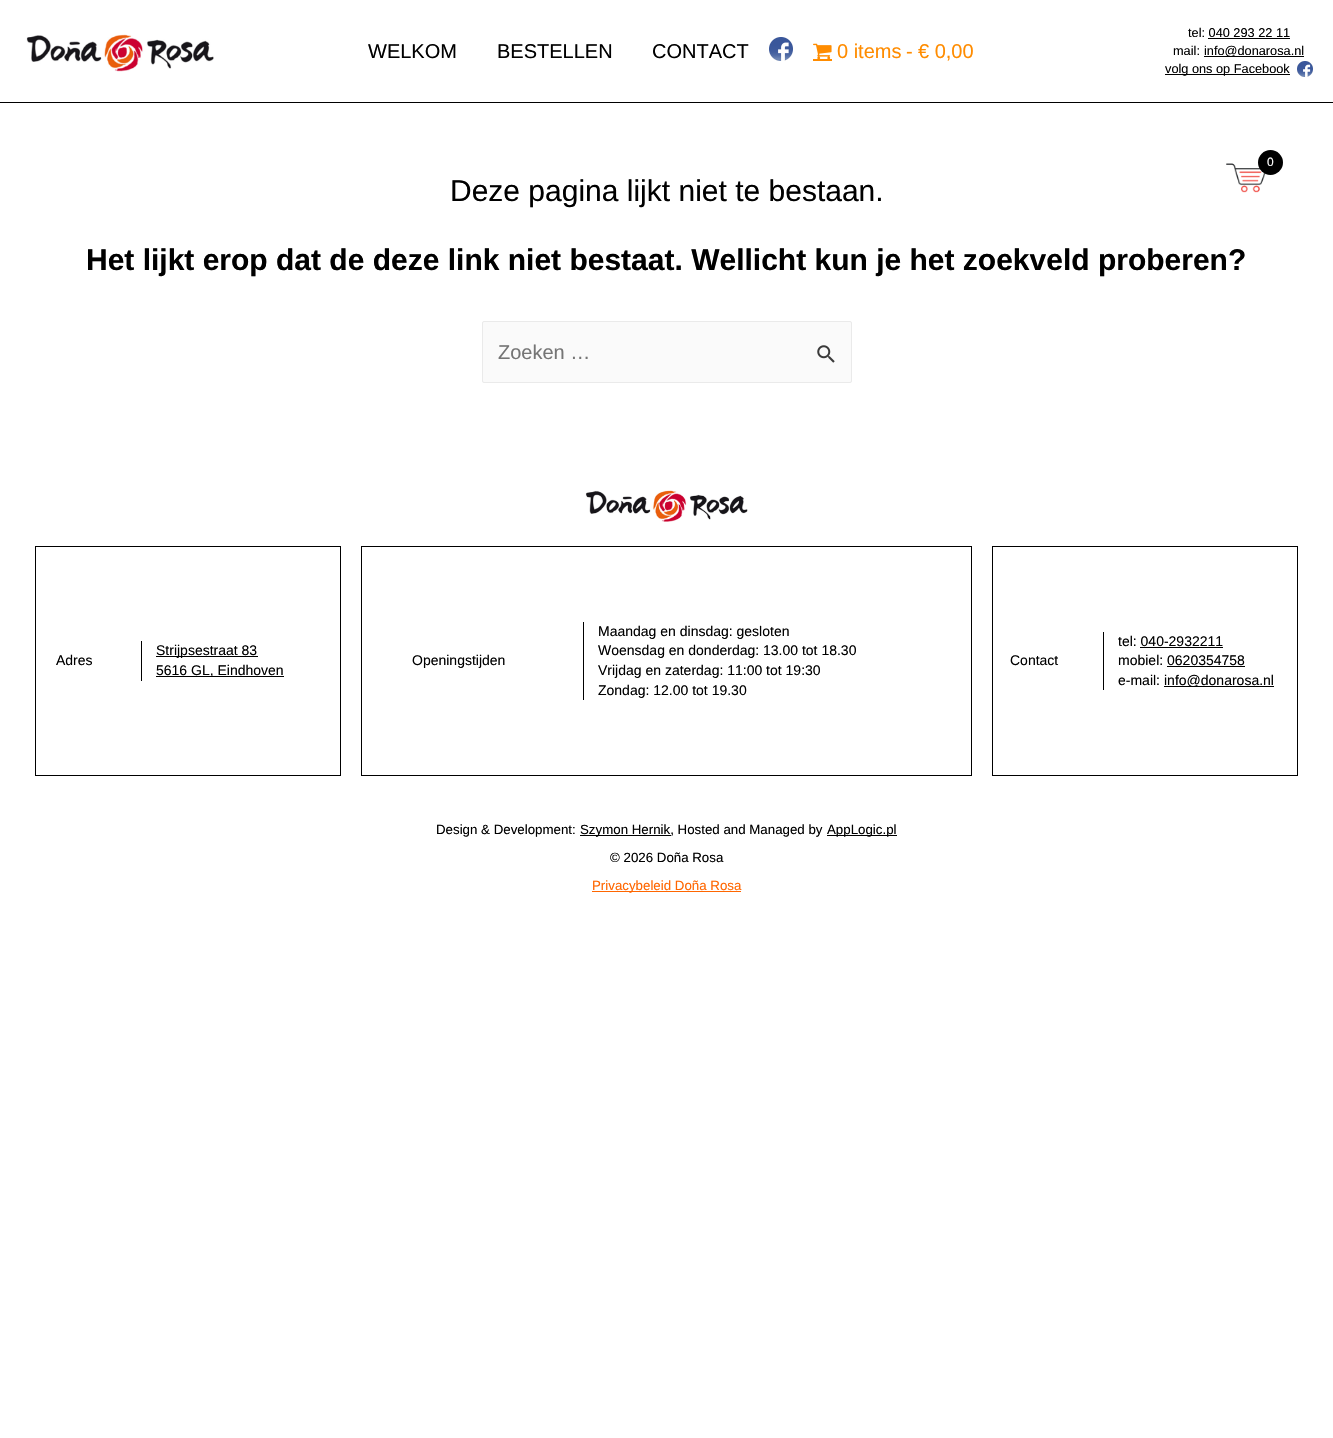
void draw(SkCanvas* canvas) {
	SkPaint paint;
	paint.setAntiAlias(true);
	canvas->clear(0xffffffff);
	paint.setColor(0xff000000);
	canvas->drawRect(SkRect::MakeXYWH(0, 102, 1333, 1), paint);
	canvas->drawImageRect(SkImages::DeferredFromEncodedData(SkData::MakeFromFileName("img1.png")), SkRect::MakeXYWH(26, 34, 188, 38), SkSamplingOptions());
	SkFont f1(fontMgr->matchFamilyStyle("Liberation Sans", SkFontStyle::Normal()), 20);
	f1.setSubpixel(true);
	canvas->drawString("WELKOM", 368, 58, f1, paint);
	canvas->drawString("BESTELLEN", 497, 58, f1, paint);
	canvas->drawString("CONTACT", 652, 58, f1, paint);
	canvas->drawImageRect(SkImages::DeferredFromEncodedData(SkData::MakeFromFileName("img2.png")), SkRect::MakeXYWH(769, 37, 24, 24), SkSamplingOptions());
	canvas->drawImageRect(SkImages::DeferredFromEncodedData(SkData::MakeFromFileName("img3.png")), SkRect::MakeXYWH(813, 43, 19, 16), SkSamplingOptions());
	paint.setColor(0xffff8c00);
	canvas->drawString("0 items", 837, 58, f1, paint);
	canvas->drawString("-", 906, 58, f1, paint);
	canvas->drawString("€ 0,00", 918, 58, f1, paint);
	canvas->drawRect(SkRect::MakeXYWH(813, 59, 19, 2), paint);
	SkFont f2(fontMgr->matchFamilyStyle("Liberation Sans", SkFontStyle::Normal()), 12.75);
	f2.setSubpixel(true);
	paint.setColor(0xff000000);
	canvas->drawString("tel: 040 293 22 11", 1188, 37, f2, paint);
	canvas->drawRect(SkRect::MakeXYWH(1208, 38, 82, 1), paint);
	canvas->drawString("mail:", 1173, 55, f2, paint);
	canvas->drawRect(SkRect::MakeXYWH(1204, 56, 100, 1), paint);
	canvas->drawString("info@donarosa.nl", 1204, 55, f2, paint);
	canvas->drawRect(SkRect::MakeXYWH(1165, 74, 125, 1), paint);
	canvas->drawString("volg ons op Facebook", 1165, 73, f2, paint);
	canvas->drawImageRect(SkImages::DeferredFromEncodedData(SkData::MakeFromFileName("img4.png")), SkRect::MakeXYWH(1297, 61, 16, 16), SkSamplingOptions());
	SkFont f3(fontMgr->matchFamilyStyle("Liberation Sans", SkFontStyle::Normal()), 30);
	f3.setSubpixel(true);
	canvas->drawString("Deze pagina lijkt niet te bestaan.", 450, 201, f3, paint);
	SkFont f4(fontMgr->matchFamilyStyle("Liberation Sans", SkFontStyle::Bold()), 30);
	f4.setSubpixel(true);
	canvas->drawString("Het lijkt erop dat de deze link niet bestaat. Wellicht kun je het zoekveld proberen?", 86, 270, f4, paint);
	paint.setColor(0xfffafafa);
	canvas->drawRoundRect(SkRect::MakeXYWH(482.5, 321.5, 369, 61), 1.5, 1.5, paint);
	paint.setStroke(true);
	paint.setStrokeWidth(1);
	paint.setColor(0xffeaeaea);
	canvas->drawRoundRect(SkRect::MakeXYWH(482.5, 321.5, 369, 61), 1.5, 1.5, paint);
	paint.setStroke(false);
	paint.setColor(0xff757575);
	canvas->drawString("Zoeken …", 498, 359, f1, paint);
	canvas->drawImageRect(SkImages::DeferredFromEncodedData(SkData::MakeFromFileName("img5.png")), SkRect::MakeXYWH(817, 345, 18, 18), SkSamplingOptions());
	canvas->drawImageRect(SkImages::DeferredFromEncodedData(SkData::MakeFromFileName("img6.png")), SkRect::MakeXYWH(585, 490, 163, 32), SkSamplingOptions());
	paint.setStroke(true);
	paint.setColor(0xff000000);
	canvas->drawRect(SkRect::MakeXYWH(35.5, 546.5, 305, 229), paint);
	SkFont f5(fontMgr->matchFamilyStyle("Liberation Sans", SkFontStyle::Normal()), 14);
	f5.setSubpixel(true);
	paint.setStroke(false);
	canvas->drawString("Adres", 56, 665, f5, paint);
	canvas->drawRect(SkRect::MakeXYWH(141, 641, 1, 40), paint);
	canvas->drawRect(SkRect::MakeXYWH(156, 656, 102, 1), paint);
	canvas->drawString("Strijpsestraat 83", 156, 655, f5, paint);
	canvas->drawRect(SkRect::MakeXYWH(156, 676, 128, 1), paint);
	canvas->drawString("5616 GL, Eindhoven", 156, 675, f5, paint);
	paint.setStroke(true);
	canvas->drawRect(SkRect::MakeXYWH(361.5, 546.5, 610, 229), paint);
	paint.setStroke(false);
	canvas->drawString("Openingstijden", 412, 665, f5, paint);
	canvas->drawRect(SkRect::MakeXYWH(583, 622, 1, 78), paint);
	canvas->drawString("Maandag en dinsdag: gesloten", 598, 636, f5, paint);
	canvas->drawString("Woensdag en donderdag: 13.00 tot 18.30", 598, 655, f5, paint);
	canvas->drawString("Vrijdag en zaterdag: 11:00 tot 19:30", 598, 675, f5, paint);
	canvas->drawString("Zondag: 12.00 tot 19.30", 598, 695, f5, paint);
	paint.setStroke(true);
	canvas->drawRect(SkRect::MakeXYWH(992.5, 546.5, 305, 229), paint);
	paint.setStroke(false);
	canvas->drawString("Contact", 1010, 665, f5, paint);
	canvas->drawRect(SkRect::MakeXYWH(1103, 632, 1, 58), paint);
	canvas->drawString("tel: 040-2932211", 1118, 646, f5, paint);
	canvas->drawRect(SkRect::MakeXYWH(1140, 647, 83, 1), paint);
	canvas->drawString("mobiel: 0620354758", 1118, 665, f5, paint);
	canvas->drawRect(SkRect::MakeXYWH(1167, 666, 78, 1), paint);
	canvas->drawString("e-mail:", 1118, 685, f5, paint);
	canvas->drawRect(SkRect::MakeXYWH(1164, 686, 110, 1), paint);
	canvas->drawString("info@donarosa.nl", 1164, 685, f5, paint);
	SkFont f6(fontMgr->matchFamilyStyle("Liberation Sans", SkFontStyle::Normal()), 13.3);
	f6.setSubpixel(true);
	canvas->drawString("Design & Development:", 436, 834, f6, paint);
	canvas->drawRect(SkRect::MakeXYWH(580, 835, 91, 1), paint);
	canvas->drawString("Szymon Hernik, Hosted and Managed by", 580, 834, f6, paint);
	canvas->drawRect(SkRect::MakeXYWH(827, 835, 70, 1), paint);
	canvas->drawString("AppLogic.pl", 827, 834, f6, paint);
	canvas->drawString("© 2026 Doña Rosa", 610, 862, f6, paint);
	paint.setColor(0xffff6600);
	canvas->drawRect(SkRect::MakeXYWH(592, 891, 149, 1), paint);
	canvas->drawString("Privacybeleid Doña Rosa", 592, 890, f6, paint);
	canvas->drawImageRect(SkImages::DeferredFromEncodedData(SkData::MakeFromFileName("img7.png")), SkRect::MakeXYWH(1226, 163, 40, 30), SkSamplingOptions());
	paint.setColor(0xff000000);
	canvas->drawCircle(1270.5, 162.5, 12.5, paint);
	SkFont f7(fontMgr->matchFamilyStyle("Liberation Sans", SkFontStyle::Normal()), 12);
	f7.setSubpixel(true);
	paint.setColor(0xffffffff);
	canvas->drawString("0", 1267, 166, f7, paint);
}
